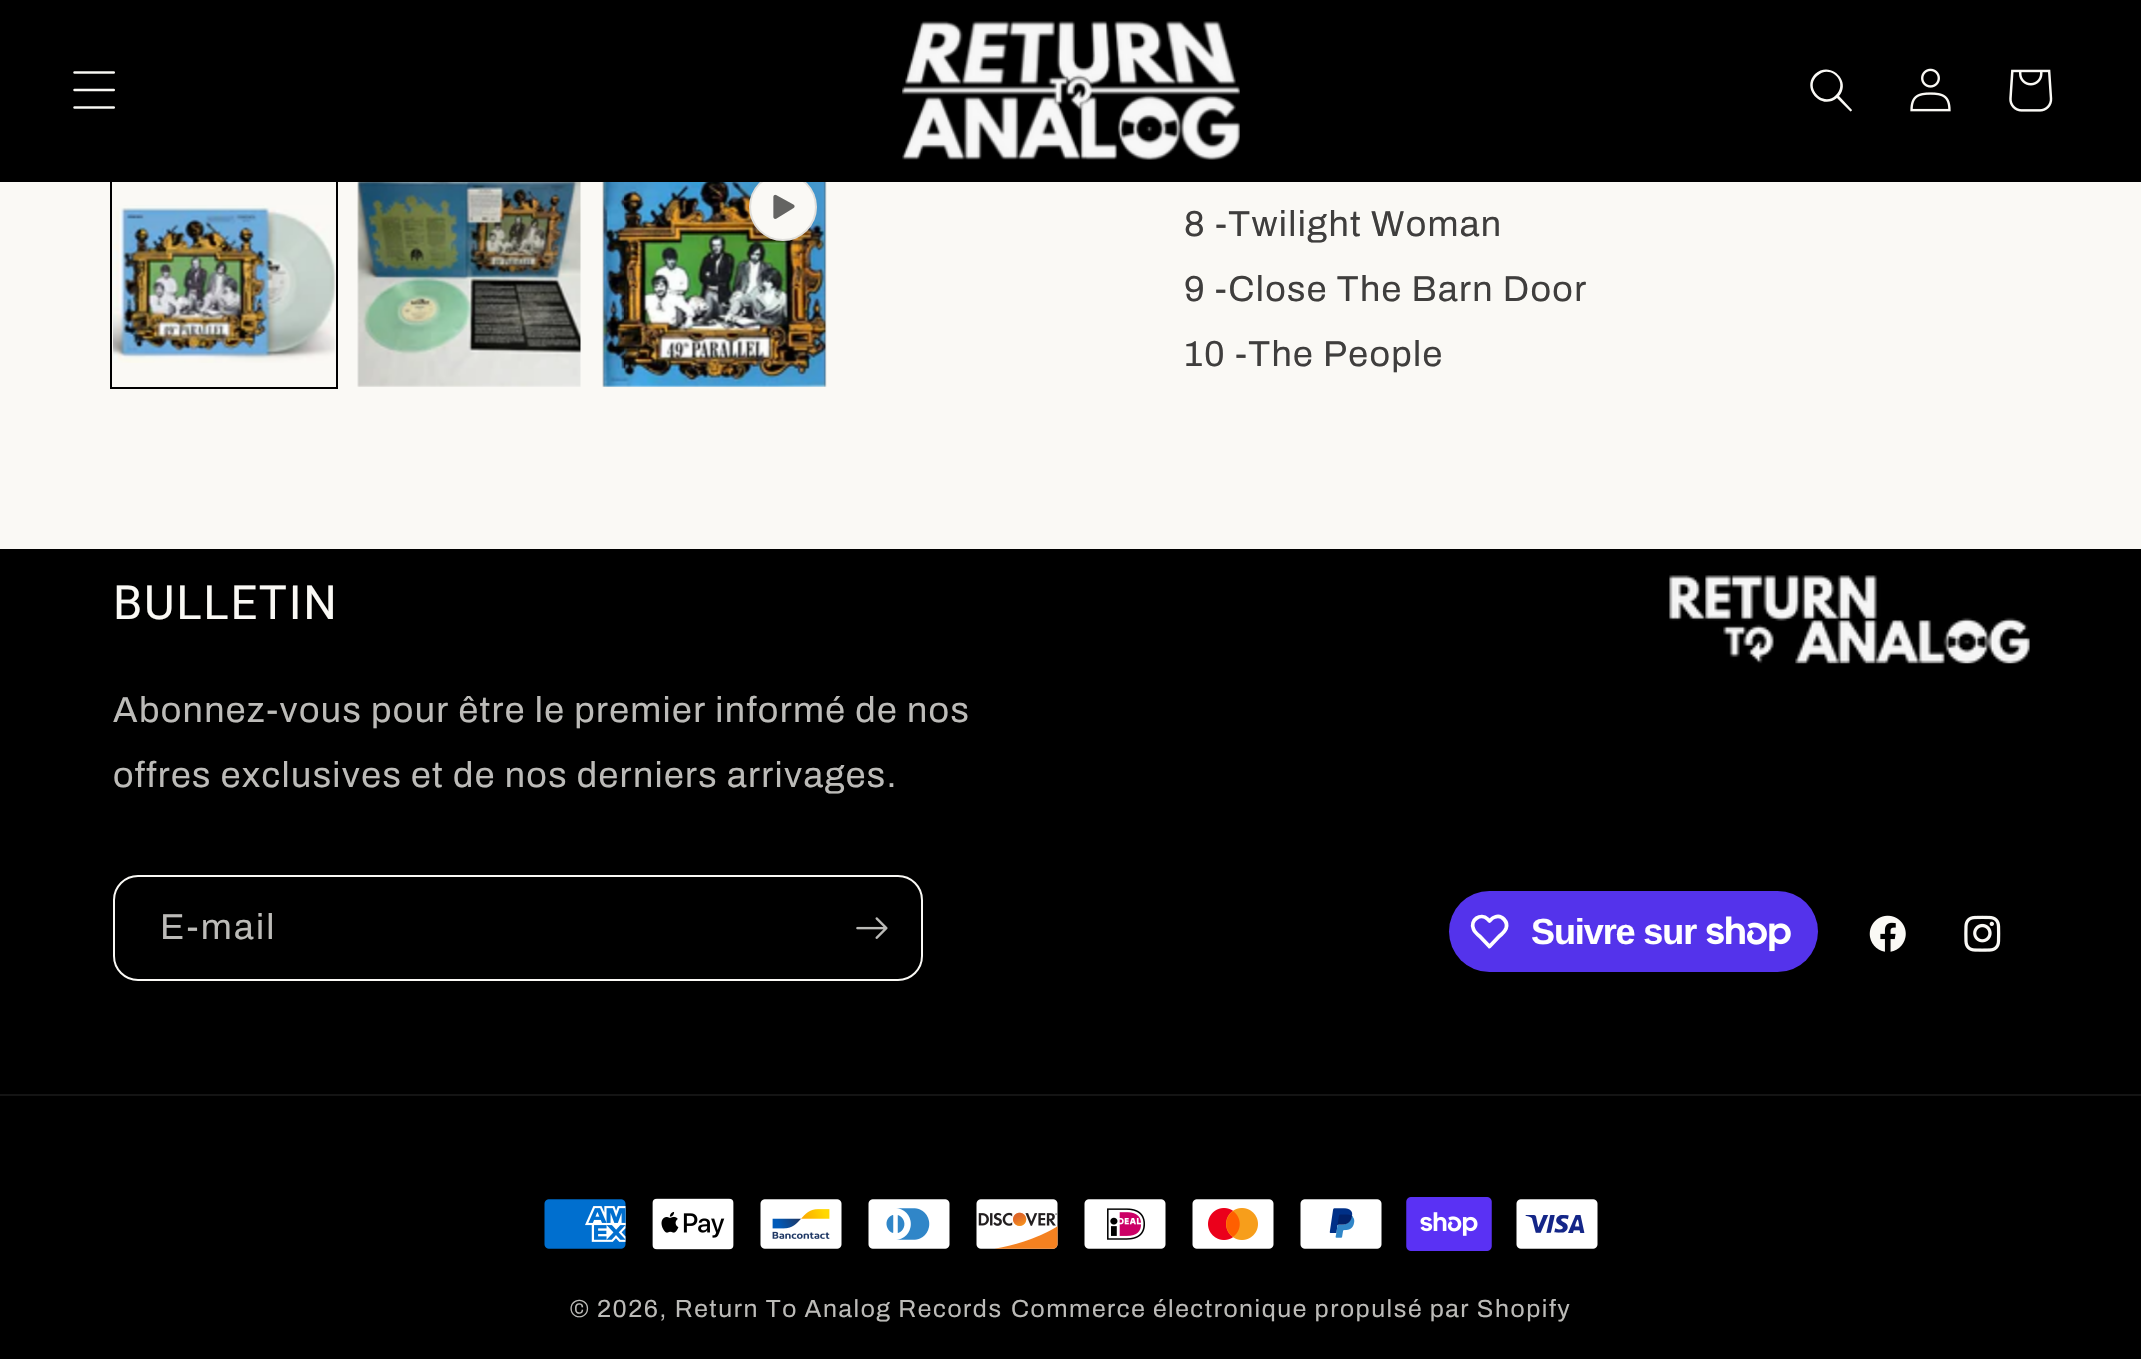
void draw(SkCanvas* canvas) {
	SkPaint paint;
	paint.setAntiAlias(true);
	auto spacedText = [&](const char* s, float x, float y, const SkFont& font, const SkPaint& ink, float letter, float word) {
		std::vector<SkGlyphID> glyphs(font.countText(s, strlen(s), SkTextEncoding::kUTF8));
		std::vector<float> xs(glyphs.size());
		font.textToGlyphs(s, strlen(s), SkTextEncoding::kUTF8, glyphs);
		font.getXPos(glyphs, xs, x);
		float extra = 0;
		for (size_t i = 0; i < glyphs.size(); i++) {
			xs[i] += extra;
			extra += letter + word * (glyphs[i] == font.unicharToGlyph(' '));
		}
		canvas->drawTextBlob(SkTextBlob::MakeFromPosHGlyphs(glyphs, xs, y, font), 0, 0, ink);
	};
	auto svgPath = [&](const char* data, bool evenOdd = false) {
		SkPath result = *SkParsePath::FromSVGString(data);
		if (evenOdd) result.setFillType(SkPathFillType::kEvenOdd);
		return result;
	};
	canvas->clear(0xfffaf9f5);
	paint.setStroke(true);
	paint.setStrokeWidth(2);
	paint.setColor(0xff000000);
	canvas->drawRect(SkRect::MakeXYWH(111, 163, 226, 225), paint);
	canvas->drawImageRect(SkImages::DeferredFromEncodedData(SkData::MakeFromFileName("img8.png")), SkRect::MakeXYWH(602, 182, 225, 205), SkSamplingOptions());
	paint.setStroke(false);
	paint.setColor(0xfffaf9f5);
	canvas->drawCircle(783, 207, 34, paint);
	paint.setStroke(true);
	paint.setColor(0x1a000000);
	canvas->drawCircle(783, 207, 33, paint);
	paint.setStroke(false);
	paint.setColor(0xff000000);
	canvas->drawRect(SkRect::MakeXYWH(0, 0, 2141, 182), paint);
	canvas->drawImageRect(SkImages::DeferredFromEncodedData(SkData::MakeFromFileName("img1.png")), SkRect::MakeXYWH(73, 71, 42, 38), SkSamplingOptions());
	canvas->drawImageRect(SkImages::DeferredFromEncodedData(SkData::MakeFromFileName("img2.png")), SkRect::MakeXYWH(902, 21, 338, 139), SkSamplingOptions());
	paint.setColor(0xfffaf9f5);
	canvas->drawPath(svgPath("M1836 95C1824 108 1804 88 1817 76C1830 63 1849 82 1836 95M1837 98C1821 111 1801 88 1815 74C1830 60 1852 81 1839 96L1852 110C1852 111 1850 112 1850 111Z", true), paint);
	canvas->drawImageRect(SkImages::DeferredFromEncodedData(SkData::MakeFromFileName("img3.png")), SkRect::MakeXYWH(1910, 68, 41, 44), SkSamplingOptions());
	canvas->drawImageRect(SkImages::DeferredFromEncodedData(SkData::MakeFromFileName("img4.png")), SkRect::MakeXYWH(2009, 69, 44, 43), SkSamplingOptions());
	canvas->drawImageRect(SkImages::DeferredFromEncodedData(SkData::MakeFromFileName("img5.png")), SkRect::MakeXYWH(113, 205, 223, 158), SkSamplingOptions());
	canvas->drawImageRect(SkImages::DeferredFromEncodedData(SkData::MakeFromFileName("img6.png")), SkRect::MakeXYWH(357, 182, 224, 205), SkSamplingOptions());
	canvas->drawImageRect(SkImages::DeferredFromEncodedData(SkData::MakeFromFileName("img7.png")), SkRect::MakeXYWH(773, 194, 22, 25), SkSamplingOptions());
	SkFont f1(fontMgr->matchFamilyStyle("Archivo", SkFontStyle::Normal()), 36);
	f1.setSubpixel(true);
	paint.setColor(0xff3f3e3d);
	spacedText("8 -Twilight Woman", 1184, 236, f1, paint, 1.35, 0);
	spacedText("9 -Close The Barn Door", 1184, 301, f1, paint, 1.35, 0);
	spacedText("10 -The People", 1184, 366, f1, paint, 1.35, 0);
	paint.setColor(0xff000000);
	canvas->drawRect(SkRect::MakeXYWH(0, 549, 2141, 810), paint);
	SkFont f2(fontMgr->matchFamilyStyle("Roboto", SkFontStyle::Normal()), 47);
	f2.setSubpixel(true);
	paint.setColor(0xfffaf9f5);
	spacedText("BULLETIN", 113, 619, f2, paint, 1.75, 0);
	paint.setColor(0xffbcbbb8);
	spacedText("Abonnez-vous pour être le premier informé de nos", 113, 722, f1, paint, 1.35, 0);
	spacedText("offres exclusives et de nos derniers arrivages.", 113, 787, f1, paint, 1.35, 0);
	canvas->drawImageRect(SkImages::DeferredFromEncodedData(SkData::MakeFromFileName("img9.png")), SkRect::MakeXYWH(1669, 575, 361, 89), SkSamplingOptions());
	paint.setStroke(true);
	paint.setColor(0xfffaf9f5);
	canvas->drawRoundRect(SkRect::MakeXYWH(114, 876, 808, 104), 24, 24, paint);
	paint.setStroke(false);
	paint.setColor(0xffbcbbb8);
	spacedText("E-mail", 160, 939, f1, paint, 2.25, 0);
	canvas->drawImageRect(SkImages::DeferredFromEncodedData(SkData::MakeFromFileName("img10.png")), SkRect::MakeXYWH(856, 917, 32, 22), SkSamplingOptions());
	paint.setColor(0xff5433eb);
	canvas->drawRoundRect(SkRect::MakeXYWH(1449, 891, 369, 81), 40.5, 40.5, paint);
	paint.setStroke(true);
	paint.setStrokeWidth(3.8);
	paint.setStrokeJoin(SkPaint::kRound_Join);
	paint.setColor(0xffffffff);
	canvas->drawPath(svgPath("M1487.5 919L1489.5 921C1491 919.5 1492.5 917.5 1495 917C1502 914.5 1508.5 922 1506 928.5C1504.5 932 1501.5 934.5 1499 936.5L1489.5 946.5L1480 936.5C1477.5 934.5 1474.5 932 1473.5 929C1469.5 920 1481 912.5 1487.5 919Z"), paint);
	SkFont f3(fontMgr->matchFamilyStyle("Liberation Sans", SkFontStyle::Bold()), 36);
	f3.setSubpixel(true);
	paint.setStroke(false);
	spacedText("Suivre sur", 1531, 944, f3, paint, -1.1, 0);
	canvas->drawImageRect(SkImages::DeferredFromEncodedData(SkData::MakeFromFileName("img11.png")), SkRect::MakeXYWH(1706, 916, 85, 36), SkSamplingOptions());
	canvas->drawImageRect(SkImages::DeferredFromEncodedData(SkData::MakeFromFileName("img12.png")), SkRect::MakeXYWH(1869, 915, 37, 37), SkSamplingOptions());
	canvas->drawImageRect(SkImages::DeferredFromEncodedData(SkData::MakeFromFileName("img13.png")), SkRect::MakeXYWH(1964, 915, 37, 37), SkSamplingOptions());
	paint.setColor(0xff141414);
	canvas->drawRect(SkRect::MakeXYWH(0, 1094, 2141, 2), paint);
	canvas->drawImageRect(SkImages::DeferredFromEncodedData(SkData::MakeFromFileName("img14.png")), SkRect::MakeXYWH(544, 1199, 82, 50), SkSamplingOptions());
	canvas->drawImageRect(SkImages::DeferredFromEncodedData(SkData::MakeFromFileName("img15.png")), SkRect::MakeXYWH(652, 1198, 82, 52), SkSamplingOptions());
	canvas->drawImageRect(SkImages::DeferredFromEncodedData(SkData::MakeFromFileName("img16.png")), SkRect::MakeXYWH(760, 1199, 82, 50), SkSamplingOptions());
	canvas->drawImageRect(SkImages::DeferredFromEncodedData(SkData::MakeFromFileName("img17.png")), SkRect::MakeXYWH(868, 1199, 82, 50), SkSamplingOptions());
	canvas->drawImageRect(SkImages::DeferredFromEncodedData(SkData::MakeFromFileName("img18.png")), SkRect::MakeXYWH(976, 1199, 82, 50), SkSamplingOptions());
	canvas->drawImageRect(SkImages::DeferredFromEncodedData(SkData::MakeFromFileName("img19.png")), SkRect::MakeXYWH(1084, 1199, 82, 50), SkSamplingOptions());
	canvas->drawImageRect(SkImages::DeferredFromEncodedData(SkData::MakeFromFileName("img20.png")), SkRect::MakeXYWH(1192, 1199, 82, 50), SkSamplingOptions());
	canvas->drawImageRect(SkImages::DeferredFromEncodedData(SkData::MakeFromFileName("img21.png")), SkRect::MakeXYWH(1300, 1199, 82, 50), SkSamplingOptions());
	canvas->drawImageRect(SkImages::DeferredFromEncodedData(SkData::MakeFromFileName("img22.png")), SkRect::MakeXYWH(1406, 1197, 86, 54), SkSamplingOptions());
	canvas->drawImageRect(SkImages::DeferredFromEncodedData(SkData::MakeFromFileName("img23.png")), SkRect::MakeXYWH(1516, 1199, 82, 50), SkSamplingOptions());
	SkFont f4(fontMgr->matchFamilyStyle("Archivo", SkFontStyle::Normal()), 24.75);
	f4.setSubpixel(true);
	paint.setColor(0xffbcbbb8);
	spacedText("© 2026, Return To Analog Records", 570, 1317, f4, paint, 1.55, 0);
	spacedText("Commerce électronique propulsé par Shopify", 1011, 1317, f4, paint, 1.55, 0);
}
